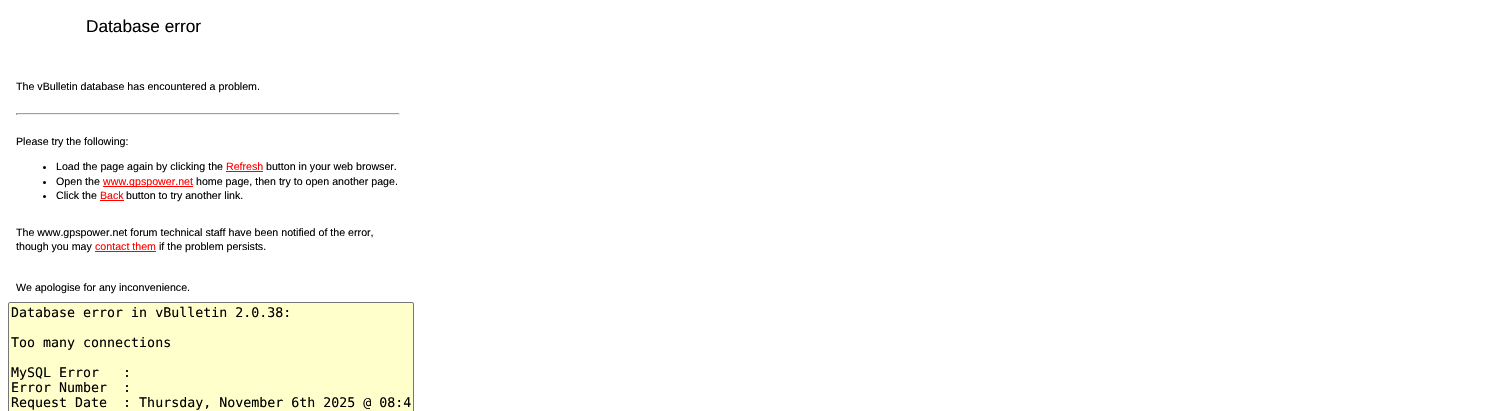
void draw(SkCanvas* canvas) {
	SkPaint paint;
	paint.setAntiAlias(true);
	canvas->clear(0xffffffff);
	SkFont f1(fontMgr->matchFamilyStyle("Liberation Sans", SkFontStyle::Normal()), 17.25);
	f1.setSubpixel(true);
	paint.setColor(0xff000000);
	canvas->drawString("Database error", 86, 32, f1, paint);
	SkFont f2(fontMgr->matchFamilyStyle("Liberation Sans", SkFontStyle::Normal()), 10.65);
	f2.setSubpixel(true);
	canvas->drawString("The vBulletin database has encountered a problem.", 16, 90, f2, paint);
	paint.setColor(0xff9f9f9f);
	canvas->drawRect(SkRect::MakeXYWH(16, 113, 384, 1), paint);
	paint.setColor(0xffeeeeee);
	canvas->drawRect(SkRect::MakeXYWH(399, 113, 1, 2), paint);
	canvas->drawRect(SkRect::MakeXYWH(16, 114, 384, 1), paint);
	paint.setColor(0xff9f9f9f);
	canvas->drawRect(SkRect::MakeXYWH(16, 113, 1, 2), paint);
	paint.setColor(0xff000000);
	canvas->drawString("Please try the following:", 16, 145, f2, paint);
	canvas->drawCircle(44.5, 167.5, 1.5, paint);
	canvas->drawString("Load the page again by clicking the", 56, 170, f2, paint);
	paint.setColor(0xffff0000);
	canvas->drawString("Refresh", 226, 170, f2, paint);
	canvas->drawRect(SkRect::MakeXYWH(226, 171, 37, 1), paint);
	paint.setColor(0xff000000);
	canvas->drawString("button in your web browser.", 266, 170, f2, paint);
	canvas->drawCircle(44.5, 182.5, 1.5, paint);
	canvas->drawString("Open the", 56, 185, f2, paint);
	paint.setColor(0xffff0000);
	canvas->drawRect(SkRect::MakeXYWH(103, 186, 90, 1), paint);
	canvas->drawString("www.gpspower.net", 103, 185, f2, paint);
	paint.setColor(0xff000000);
	canvas->drawString("home page, then try to open another page.", 196, 185, f2, paint);
	canvas->drawCircle(44.5, 196.5, 1.5, paint);
	canvas->drawString("Click the", 56, 199, f2, paint);
	paint.setColor(0xffff0000);
	canvas->drawString("Back", 100, 199, f2, paint);
	canvas->drawRect(SkRect::MakeXYWH(100, 200, 24, 1), paint);
	paint.setColor(0xff000000);
	canvas->drawString("button to try another link.", 126, 199, f2, paint);
	canvas->drawString("The www.gpspower.net forum technical staff have been notified of the error,", 16, 236, f2, paint);
	canvas->drawString("though you may", 16, 250, f2, paint);
	paint.setColor(0xffff0000);
	canvas->drawString("contact them", 95, 250, f2, paint);
	canvas->drawRect(SkRect::MakeXYWH(95, 251, 61, 1), paint);
	paint.setColor(0xff000000);
	canvas->drawString("if the problem persists.", 159, 250, f2, paint);
	canvas->drawString("We apologise for any inconvenience.", 16, 291, f2, paint);
	paint.setColor(0xffffffcc);
	canvas->drawRoundRect(SkRect::MakeXYWH(8.5, 302.5, 405, 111), 1.5, 1.5, paint);
	paint.setStroke(true);
	paint.setStrokeWidth(1);
	paint.setColor(0xff767676);
	canvas->drawRoundRect(SkRect::MakeXYWH(8.5, 302.5, 405, 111), 1.5, 1.5, paint);
	SkFont f3(fontMgr->matchFamilyStyle("DejaVu Sans Mono", SkFontStyle::Normal()), 13.3);
	f3.setSubpixel(true);
	paint.setStroke(false);
	paint.setColor(0xff000000);
	canvas->drawString("Database error in vBulletin 2.0.38:", 11, 317, f3, paint);
	canvas->drawString("Too many connections", 11, 347, f3, paint);
	canvas->drawString("MySQL Error   :", 11, 377, f3, paint);
	canvas->drawString("Error Number  :", 11, 392, f3, paint);
	canvas->drawString("Request Date  : Thursday, November 6th 2025 @ 08:4", 11, 407, f3, paint);
}
